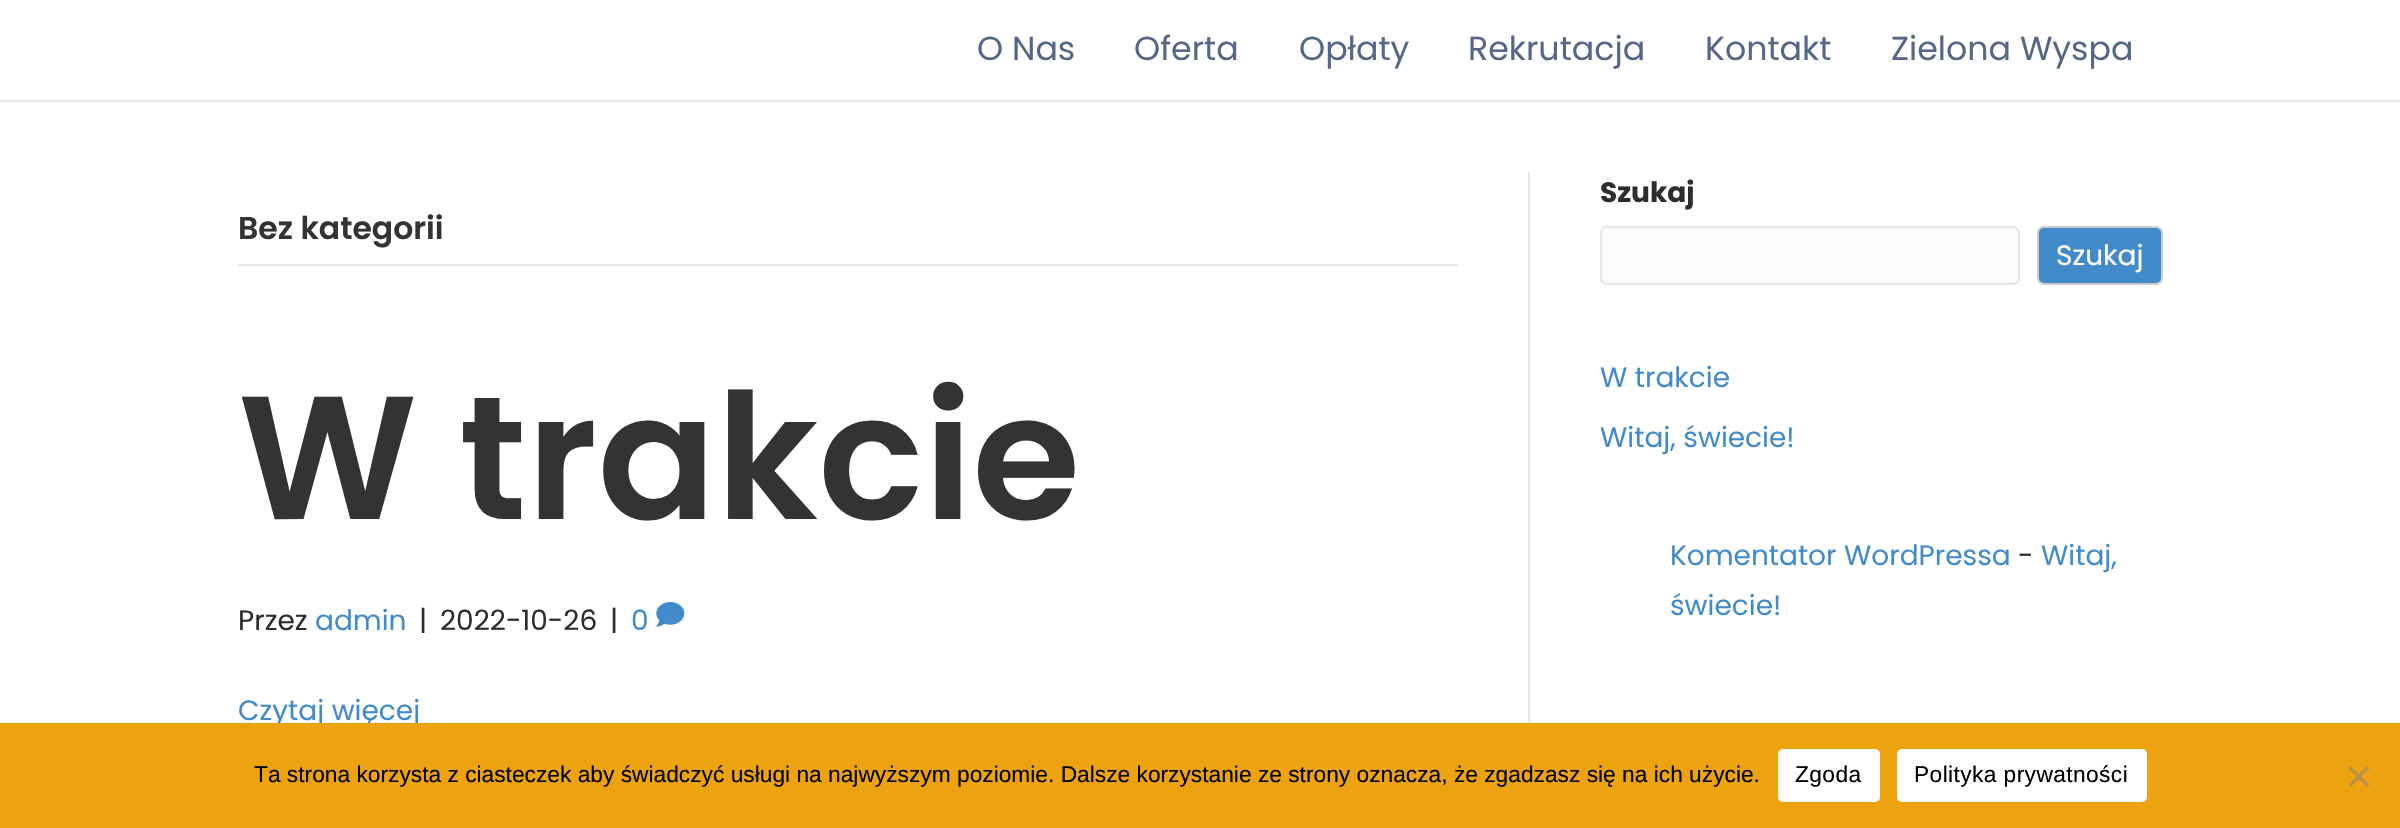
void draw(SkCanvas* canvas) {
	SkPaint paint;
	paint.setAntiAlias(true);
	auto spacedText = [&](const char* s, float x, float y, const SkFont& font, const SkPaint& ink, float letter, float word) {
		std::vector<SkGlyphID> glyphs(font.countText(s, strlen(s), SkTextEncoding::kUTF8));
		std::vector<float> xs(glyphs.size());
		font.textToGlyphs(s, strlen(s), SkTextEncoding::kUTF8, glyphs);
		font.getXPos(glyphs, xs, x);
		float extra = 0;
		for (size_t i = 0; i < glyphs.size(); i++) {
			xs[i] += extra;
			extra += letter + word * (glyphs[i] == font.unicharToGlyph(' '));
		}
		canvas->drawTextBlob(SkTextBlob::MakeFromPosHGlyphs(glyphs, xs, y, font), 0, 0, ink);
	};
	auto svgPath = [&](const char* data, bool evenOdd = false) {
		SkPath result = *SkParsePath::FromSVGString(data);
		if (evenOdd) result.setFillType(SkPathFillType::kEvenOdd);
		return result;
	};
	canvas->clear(0xffffffff);
	paint.setColor(0xffe9e9e9);
	canvas->drawRect(SkRect::MakeXYWH(0, 100, 2400, 2), paint);
	SkFont f1(fontMgr->matchFamilyStyle("Poppins", SkFontStyle::Normal()), 33.25);
	f1.setSubpixel(true);
	paint.setColor(0xff556687);
	canvas->drawString("O Nas", 977, 60, f1, paint);
	canvas->drawString("Oferta", 1134, 60, f1, paint);
	canvas->drawString("Opłaty", 1299, 60, f1, paint);
	canvas->drawString("Rekrutacja", 1468, 60, f1, paint);
	canvas->drawString("Kontakt", 1705, 60, f1, paint);
	canvas->drawString("Zielona Wyspa", 1891, 60, f1, paint);
	paint.setColor(0xffe6e6e6);
	canvas->drawRect(SkRect::MakeXYWH(1528, 172, 2, 551), paint);
	canvas->drawRect(SkRect::MakeXYWH(238, 264, 1220, 2), paint);
	SkFont f2(fontMgr->matchFamilyStyle("Poppins", SkFontStyle(600, SkFontStyle::kNormal_Width, SkFontStyle::kUpright_Slant)), 31.5);
	f2.setSubpixel(true);
	paint.setColor(0xff333333);
	canvas->drawString("Bez kategorii", 238, 239, f2, paint);
	SkFont f3(fontMgr->matchFamilyStyle("Poppins", SkFontStyle(600, SkFontStyle::kNormal_Width, SkFontStyle::kUpright_Slant)), 175);
	f3.setSubpixel(true);
	canvas->drawString("W trakcie", 238, 519, f3, paint);
	SkFont f4(fontMgr->matchFamilyStyle("Poppins", SkFontStyle::Normal()), 28);
	f4.setSubpixel(true);
	paint.setColor(0xff2d2d2d);
	canvas->drawString("Przez", 238, 630, f4, paint);
	paint.setColor(0xff428bca);
	canvas->drawString("admin", 315, 630, f4, paint);
	paint.setColor(0xff2d2d2d);
	canvas->drawString("|", 419, 630, f4, paint);
	canvas->drawString("2022-10-26", 440, 630, f4, paint);
	canvas->drawString("|", 610, 630, f4, paint);
	paint.setColor(0xff428bca);
	canvas->drawString("0", 631, 630, f4, paint);
	canvas->drawImageRect(SkImages::DeferredFromEncodedData(SkData::MakeFromFileName("img1.png")), SkRect::MakeXYWH(656, 602, 29, 25), SkSamplingOptions());
	canvas->drawString("Czytaj więcej", 238, 720, f4, paint);
	SkFont f5(fontMgr->matchFamilyStyle("Poppins", SkFontStyle::Bold()), 28);
	f5.setSubpixel(true);
	paint.setColor(0xff2d2d2d);
	canvas->drawString("Szukaj", 1600, 202, f5, paint);
	paint.setColor(0xfffcfcfc);
	canvas->drawRoundRect(SkRect::MakeXYWH(1601, 227, 418, 57), 6, 6, paint);
	paint.setStroke(true);
	paint.setStrokeWidth(2);
	paint.setColor(0xffe6e6e6);
	canvas->drawRoundRect(SkRect::MakeXYWH(1601, 227, 418, 57), 6, 6, paint);
	paint.setStroke(false);
	paint.setColor(0xff428bca);
	canvas->drawRoundRect(SkRect::MakeXYWH(2038, 227, 124, 57), 6, 6, paint);
	paint.setStroke(true);
	paint.setColor(0xffcccccc);
	canvas->drawRoundRect(SkRect::MakeXYWH(2038, 227, 124, 57), 6, 6, paint);
	paint.setStroke(false);
	paint.setColor(0xffffffff);
	canvas->drawString("Szukaj", 2056, 265, f4, paint);
	paint.setColor(0xff428bca);
	canvas->drawString("W trakcie", 1600, 387, f4, paint);
	canvas->drawString("Witaj, świecie!", 1600, 447, f4, paint);
	canvas->drawString("Komentator WordPressa", 1670, 565, f4, paint);
	paint.setColor(0xff2d2d2d);
	canvas->drawString("-", 2018, 565, f4, paint);
	paint.setColor(0xff428bca);
	canvas->drawString("Witaj,", 2041, 565, f4, paint);
	canvas->drawString("świecie!", 1670, 615, f4, paint);
	paint.setColor(0xffeda310);
	canvas->drawRect(SkRect::MakeXYWH(0, 723, 2400, 105), paint);
	SkFont f6(fontMgr->matchFamilyStyle("Liberation Sans", SkFontStyle::Normal()), 22.75);
	f6.setSubpixel(true);
	paint.setColor(0xff000000);
	canvas->drawString("Ta strona korzysta z ciasteczek aby świadczyć usługi na najwyższym poziomie. Dalsze korzystanie ze strony oznacza, że zgadzasz się na ich użycie.", 254, 782, f6, paint);
	paint.setColor(0xffffffff);
	canvas->drawRoundRect(SkRect::MakeXYWH(1778, 749, 102, 53), 5, 5, paint);
	paint.setColor(0xff000000);
	spacedText("Zgoda", 1795, 782, f6, paint, 0.4, 0);
	paint.setColor(0xffffffff);
	canvas->drawRoundRect(SkRect::MakeXYWH(1897, 749, 250, 53), 5, 5, paint);
	paint.setColor(0xff000000);
	spacedText("Polityka prywatności", 1914, 782, f6, paint, 0.4, 0);
	paint.setColor(0xffb79248);
	canvas->drawPath(svgPath("M2367 766L2369.5 768.5L2351 787L2348.5 784.5Z"), paint);
	canvas->drawPath(svgPath("M2348.5 768.5L2351 766L2369.5 784.5L2367 787Z"), paint);
}
